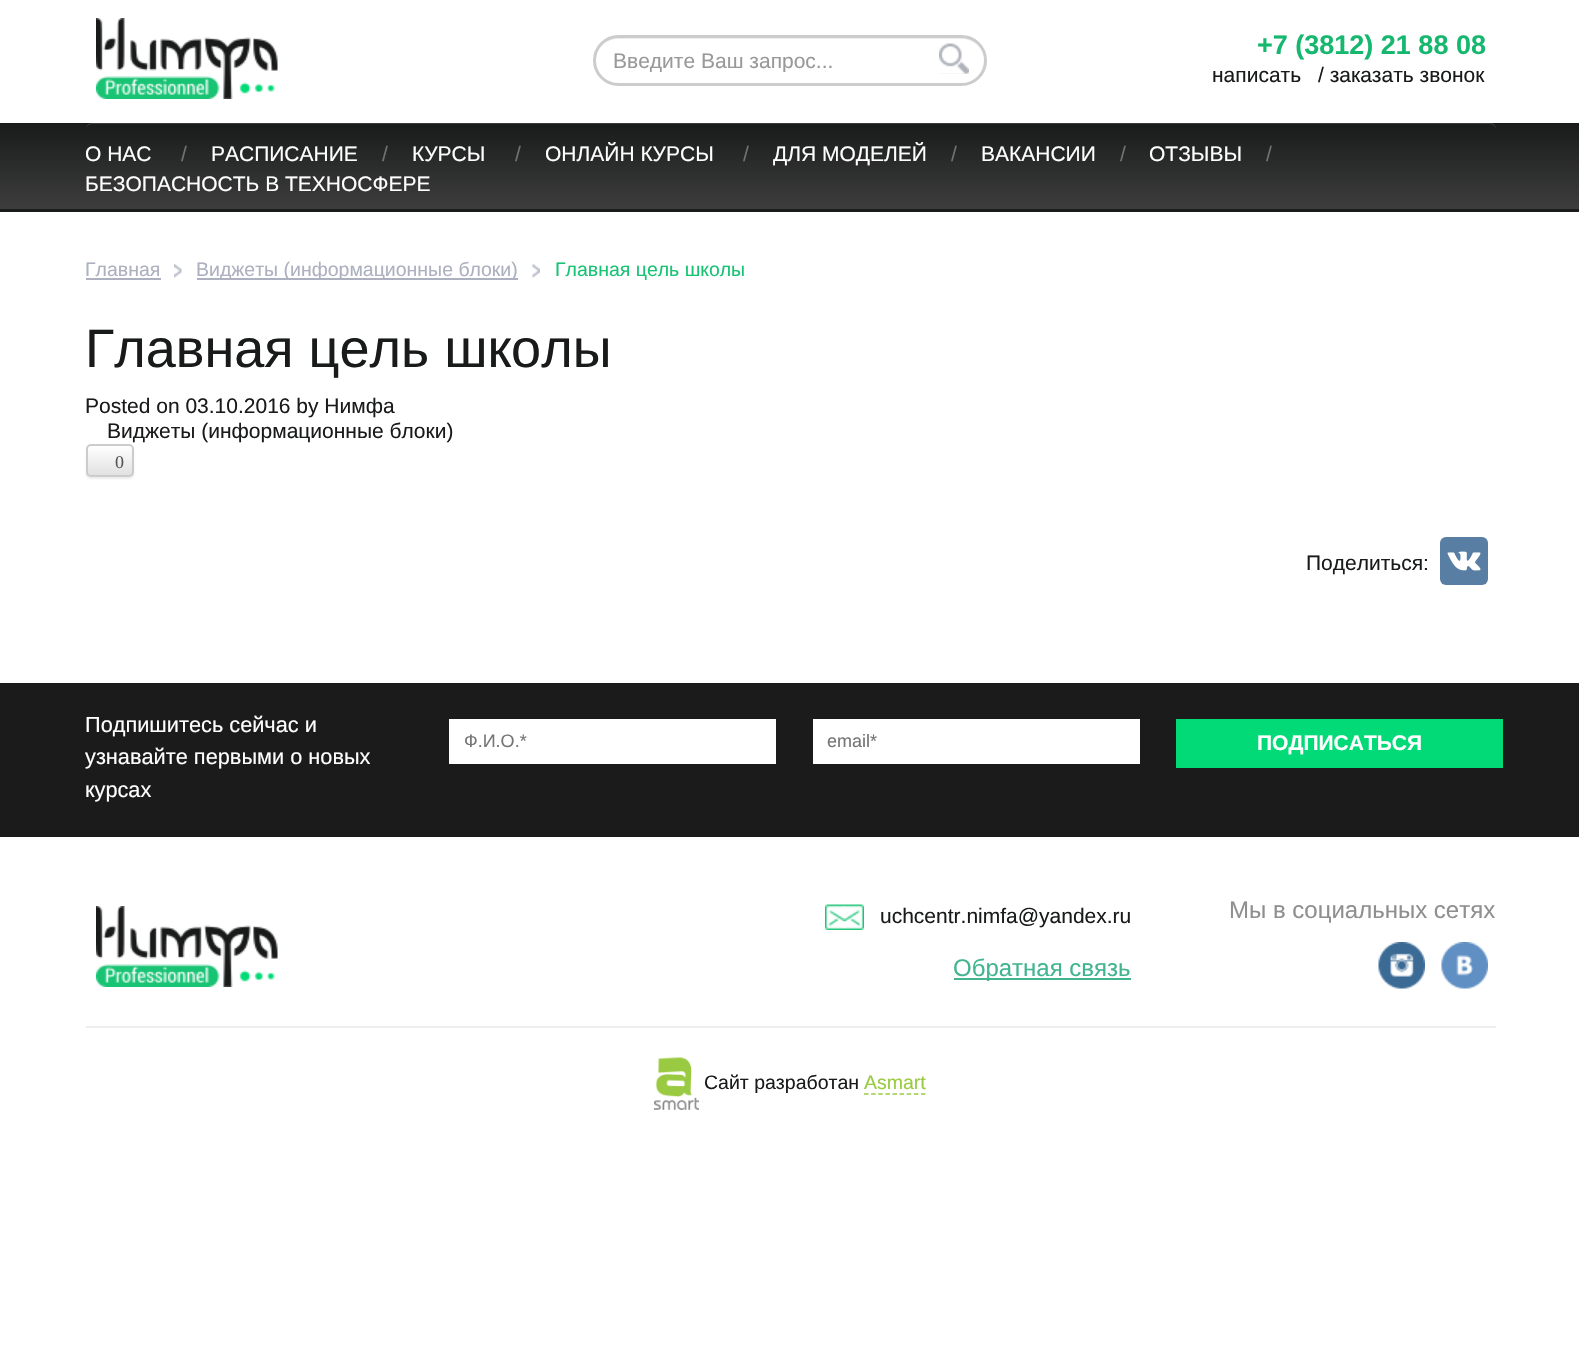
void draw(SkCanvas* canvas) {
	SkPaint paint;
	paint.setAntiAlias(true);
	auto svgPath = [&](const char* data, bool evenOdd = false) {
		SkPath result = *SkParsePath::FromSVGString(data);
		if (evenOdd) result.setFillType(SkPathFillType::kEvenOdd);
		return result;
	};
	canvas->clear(0xffffffff);
	canvas->drawImageRect(SkImages::DeferredFromEncodedData(SkData::MakeFromFileName("img1.png")), SkRect::MakeXYWH(96, 18, 182, 81), SkSamplingOptions());
	paint.setColor(0xffececec);
	canvas->drawPath(svgPath("M618 39H962C974 39 984 49 984 61C984 49 974 38 962 38H618C606 38 596 49 596 61C596 49 606 39 618 39Z"), paint);
	paint.setStroke(true);
	paint.setStrokeWidth(3);
	paint.setColor(0xffcccccc);
	canvas->drawRoundRect(SkRect::MakeXYWH(594.5, 36.5, 391, 48), 24, 24, paint);
	canvas->save();
	canvas->clipRect(SkRect::MakeXYWH(614, 48, 321, 24));
	SkFont f1(fontMgr->matchFamilyStyle("Liberation Sans", SkFontStyle::Normal()), 21);
	f1.setSubpixel(true);
	paint.setStroke(false);
	paint.setColor(0xff999999);
	canvas->drawString("Введите Ваш запрос...", 613, 68, f1, paint);
	canvas->restore();
	paint.setColor(0xffefefef);
	canvas->drawRect(SkRect::MakeXYWH(939, 73, 30, 1), paint);
	canvas->drawImageRect(SkImages::DeferredFromEncodedData(SkData::MakeFromFileName("img2.png")), SkRect::MakeXYWH(939, 43, 30, 31), SkSamplingOptions());
	SkFont f2(fontMgr->matchFamilyStyle("Liberation Sans", SkFontStyle::Bold()), 27);
	f2.setSubpixel(true);
	paint.setColor(0xff16b76e);
	canvas->drawString("+7 (3812) 21 88 08", 1257, 54, f2, paint);
	paint.setColor(0xff191b1a);
	canvas->drawString("написать", 1212, 82, f1, paint);
	canvas->drawString("/ заказать звонок", 1318, 82, f1, paint);
	{
		const SkColor colors[] = {0xff191b1a, 0xff3d3d3d};
		const float stops[] = {0, 1};
		const SkPoint ends[] = {{790, 123}, {790, 209}};
		paint.setShader(SkGradientShader::MakeLinear(ends, colors, stops, 2, SkTileMode::kClamp));
		paint.setAlpha(255);
	}
	canvas->drawRect(SkRect::MakeXYWH(0, 123, 1579, 86), paint);
	{
		const SkColor colors[] = {0xff191b1a, 0xff3d3d3d};
		const float stops[] = {0, 1};
		const SkPoint ends[] = {{790, 208}, {790, 294}};
		paint.setShader(SkGradientShader::MakeLinear(ends, colors, stops, 2, SkTileMode::kClamp));
		paint.setAlpha(255);
	}
	canvas->drawRect(SkRect::MakeXYWH(0, 209, 1579, 3), paint);
	paint.setShader(nullptr);
	paint.setColor(0xff3c3d3c);
	canvas->drawPath(svgPath("M92 124H1490C1493 124 1496 127 1496 130C1496 126 1494 123 1490 123H92C88 123 86 126 86 130C86 127 88 124 92 124Z"), paint);
	paint.setColor(0xffffffff);
	canvas->drawString("О НАС", 85, 161, f1, paint);
	paint.setColor(0xff6f7070);
	canvas->drawString("/", 181, 161, f1, paint);
	paint.setColor(0xffffffff);
	canvas->drawString("РАСПИСАНИЕ", 211, 161, f1, paint);
	paint.setColor(0xff6f7070);
	canvas->drawString("/", 382, 161, f1, paint);
	paint.setColor(0xffffffff);
	canvas->drawString("КУРСЫ", 412, 161, f1, paint);
	paint.setColor(0xff6f7070);
	canvas->drawString("/", 515, 161, f1, paint);
	paint.setColor(0xffffffff);
	canvas->drawString("ОНЛАЙН КУРСЫ", 545, 161, f1, paint);
	paint.setColor(0xff6f7070);
	canvas->drawString("/", 743, 161, f1, paint);
	paint.setColor(0xffffffff);
	canvas->drawString("ДЛЯ МОДЕЛЕЙ", 773, 161, f1, paint);
	paint.setColor(0xff6f7070);
	canvas->drawString("/", 951, 161, f1, paint);
	paint.setColor(0xffffffff);
	canvas->drawString("ВАКАНСИИ", 981, 161, f1, paint);
	paint.setColor(0xff6f7070);
	canvas->drawString("/", 1120, 161, f1, paint);
	paint.setColor(0xffffffff);
	canvas->drawString("ОТЗЫВЫ", 1149, 161, f1, paint);
	paint.setColor(0xff6f7070);
	canvas->drawString("/", 1266, 161, f1, paint);
	paint.setColor(0xffffffff);
	canvas->drawString("БЕЗОПАСНОСТЬ В ТЕХНОСФЕРЕ", 85, 191, f1, paint);
	SkFont f3(fontMgr->matchFamilyStyle("Liberation Sans", SkFontStyle::Normal()), 19.5);
	f3.setSubpixel(true);
	paint.setColor(0xffacb0bf);
	canvas->drawString("Главная", 85, 276, f3, paint);
	canvas->drawRect(SkRect::MakeXYWH(86, 278, 75, 2), paint);
	canvas->drawImageRect(SkImages::DeferredFromEncodedData(SkData::MakeFromFileName("img3.png")), SkRect::MakeXYWH(174, 264, 8, 14), SkSamplingOptions());
	canvas->drawRect(SkRect::MakeXYWH(197, 278, 321, 2), paint);
	canvas->drawString("Виджеты (информационные блоки)", 196, 276, f3, paint);
	canvas->drawImageRect(SkImages::DeferredFromEncodedData(SkData::MakeFromFileName("img4.png")), SkRect::MakeXYWH(532, 264, 8, 14), SkSamplingOptions());
	paint.setColor(0xff18c374);
	canvas->drawString("Главная цель школы", 555, 276, f3, paint);
	SkFont f4(fontMgr->matchFamilyStyle("Liberation Sans", SkFontStyle::Normal()), 54);
	f4.setSubpixel(true);
	paint.setColor(0xff191b1a);
	canvas->drawString("Главная цель школы", 85, 367, f4, paint);
	canvas->drawString("Posted on 03.10.2016 by Нимфа", 85, 413, f1, paint);
	canvas->drawString("Виджеты (информационные блоки)", 107, 438, f1, paint);
	paint.setColor(0x12000000);
	paint.setMaskFilter(SkMaskFilter::MakeBlur(kNormal_SkBlurStyle, 1));
	canvas->drawRoundRect(SkRect::MakeXYWH(86, 446, 48, 33), 5, 5, paint);
	paint.setMaskFilter(nullptr);
	canvas->save();
	canvas->clipPath(svgPath("M91 444H129C132 444 134 446 134 449V472C134 475 132 477 129 477H91C88 477 86 475 86 472V449C86 446 88 444 91 444Z"), true);
	{
		const SkColor colors[] = {0xffffffff, 0xffe0e0e0};
		const float stops[] = {0, 1};
		const SkPoint ends[] = {{110, 446}, {110, 476}};
		paint.setShader(SkGradientShader::MakeLinear(ends, colors, stops, 2, SkTileMode::kClamp));
		paint.setAlpha(255);
	}
	canvas->drawRect(SkRect::MakeXYWH(86, 446, 48, 30), paint);
	canvas->restore();
	paint.setStroke(true);
	paint.setStrokeWidth(2);
	paint.setShader(nullptr);
	paint.setColor(0xffcccccc);
	canvas->drawRoundRect(SkRect::MakeXYWH(87, 445, 46, 31), 4, 4, paint);
	SkFont f5(fontMgr->matchFamilyStyle("Liberation Serif", SkFontStyle::Normal()), 18);
	f5.setSubpixel(true);
	paint.setStroke(false);
	paint.setColor(0xff555555);
	canvas->drawString("0", 115, 468, f5, paint);
	paint.setColor(0xff191b1a);
	canvas->drawString("Поделиться:", 1306, 570, f1, paint);
	paint.setColor(0xff587ea3);
	canvas->drawRoundRect(SkRect::MakeXYWH(1440, 537, 48, 48), 6, 6, paint);
	canvas->drawImageRect(SkImages::DeferredFromEncodedData(SkData::MakeFromFileName("img5.png")), SkRect::MakeXYWH(1447, 551, 34, 20), SkSamplingOptions());
	paint.setColor(0xff1b1b1b);
	canvas->drawRect(SkRect::MakeXYWH(0, 683, 1579, 154), paint);
	SkFont f6(fontMgr->matchFamilyStyle("Liberation Sans", SkFontStyle::Normal()), 21.75);
	f6.setSubpixel(true);
	paint.setColor(0xffffffff);
	canvas->drawString("Подпишитесь сейчас и", 85, 732, f6, paint);
	canvas->drawString("узнавайте первыми о новых", 85, 764, f6, paint);
	canvas->drawString("курсах", 85, 797, f6, paint);
	canvas->drawRect(SkRect::MakeXYWH(449, 719, 327, 45), paint);
	SkFont f7(fontMgr->matchFamilyStyle("Liberation Sans", SkFontStyle::Normal()), 18);
	f7.setSubpixel(true);
	paint.setColor(0xff757575);
	canvas->drawString("Ф.И.О.*", 464, 747, f7, paint);
	paint.setColor(0xffffffff);
	canvas->drawRect(SkRect::MakeXYWH(813, 719, 327, 45), paint);
	paint.setColor(0xff757575);
	canvas->drawString("email*", 827, 747, f7, paint);
	paint.setColor(0xff02da77);
	canvas->drawRect(SkRect::MakeXYWH(1176, 719, 327, 49), paint);
	SkFont f8(fontMgr->matchFamilyStyle("Liberation Sans", SkFontStyle::Bold()), 21);
	f8.setSubpixel(true);
	paint.setColor(0xffffffff);
	canvas->drawString("ПОДПИСАТЬСЯ", 1257, 750, f8, paint);
	canvas->drawImageRect(SkImages::DeferredFromEncodedData(SkData::MakeFromFileName("img1.png")), SkRect::MakeXYWH(96, 906, 182, 81), SkSamplingOptions());
	canvas->drawImageRect(SkImages::DeferredFromEncodedData(SkData::MakeFromFileName("img6.png")), SkRect::MakeXYWH(825, 904, 39, 26), SkSamplingOptions());
	paint.setColor(0xff191b1a);
	canvas->drawString("uchcentr.nimfa@yandex.ru", 880, 923, f1, paint);
	paint.setColor(0xff42b490);
	canvas->drawRect(SkRect::MakeXYWH(954, 978, 177, 2), paint);
	SkFont f9(fontMgr->matchFamilyStyle("Liberation Sans", SkFontStyle::Normal()), 24);
	f9.setSubpixel(true);
	canvas->drawString("Обратная связь", 953, 976, f9, paint);
	paint.setColor(0xff8f8f8f);
	canvas->drawString("Мы в социальных сетях", 1229, 918, f9, paint);
	canvas->drawImageRect(SkImages::DeferredFromEncodedData(SkData::MakeFromFileName("img7.png")), SkRect::MakeXYWH(1378, 942, 47, 47), SkSamplingOptions());
	canvas->drawImageRect(SkImages::DeferredFromEncodedData(SkData::MakeFromFileName("img8.png")), SkRect::MakeXYWH(1441, 942, 47, 47), SkSamplingOptions());
	paint.setColor(0xffeeeeee);
	canvas->drawRect(SkRect::MakeXYWH(86, 1026, 1410, 2), paint);
	canvas->drawImageRect(SkImages::DeferredFromEncodedData(SkData::MakeFromFileName("img9.png")), SkRect::MakeXYWH(654, 1057, 45, 53), SkSamplingOptions());
	paint.setColor(0xff191b1a);
	canvas->drawString("Сайт разработан", 704, 1089, f3, paint);
	paint.setColor(0xff9aca42);
	canvas->drawString("Asmart", 864, 1089, f3, paint);
	paint.setStroke(true);
	paint.setStrokeWidth(1.5);
	paint.setPathEffect(SkDashPathEffect::Make({{4.5f, 2.62f}}, 0));
	canvas->drawPath(svgPath("M864 1094H925.5"), paint);
	paint.setPathEffect(nullptr);
}
